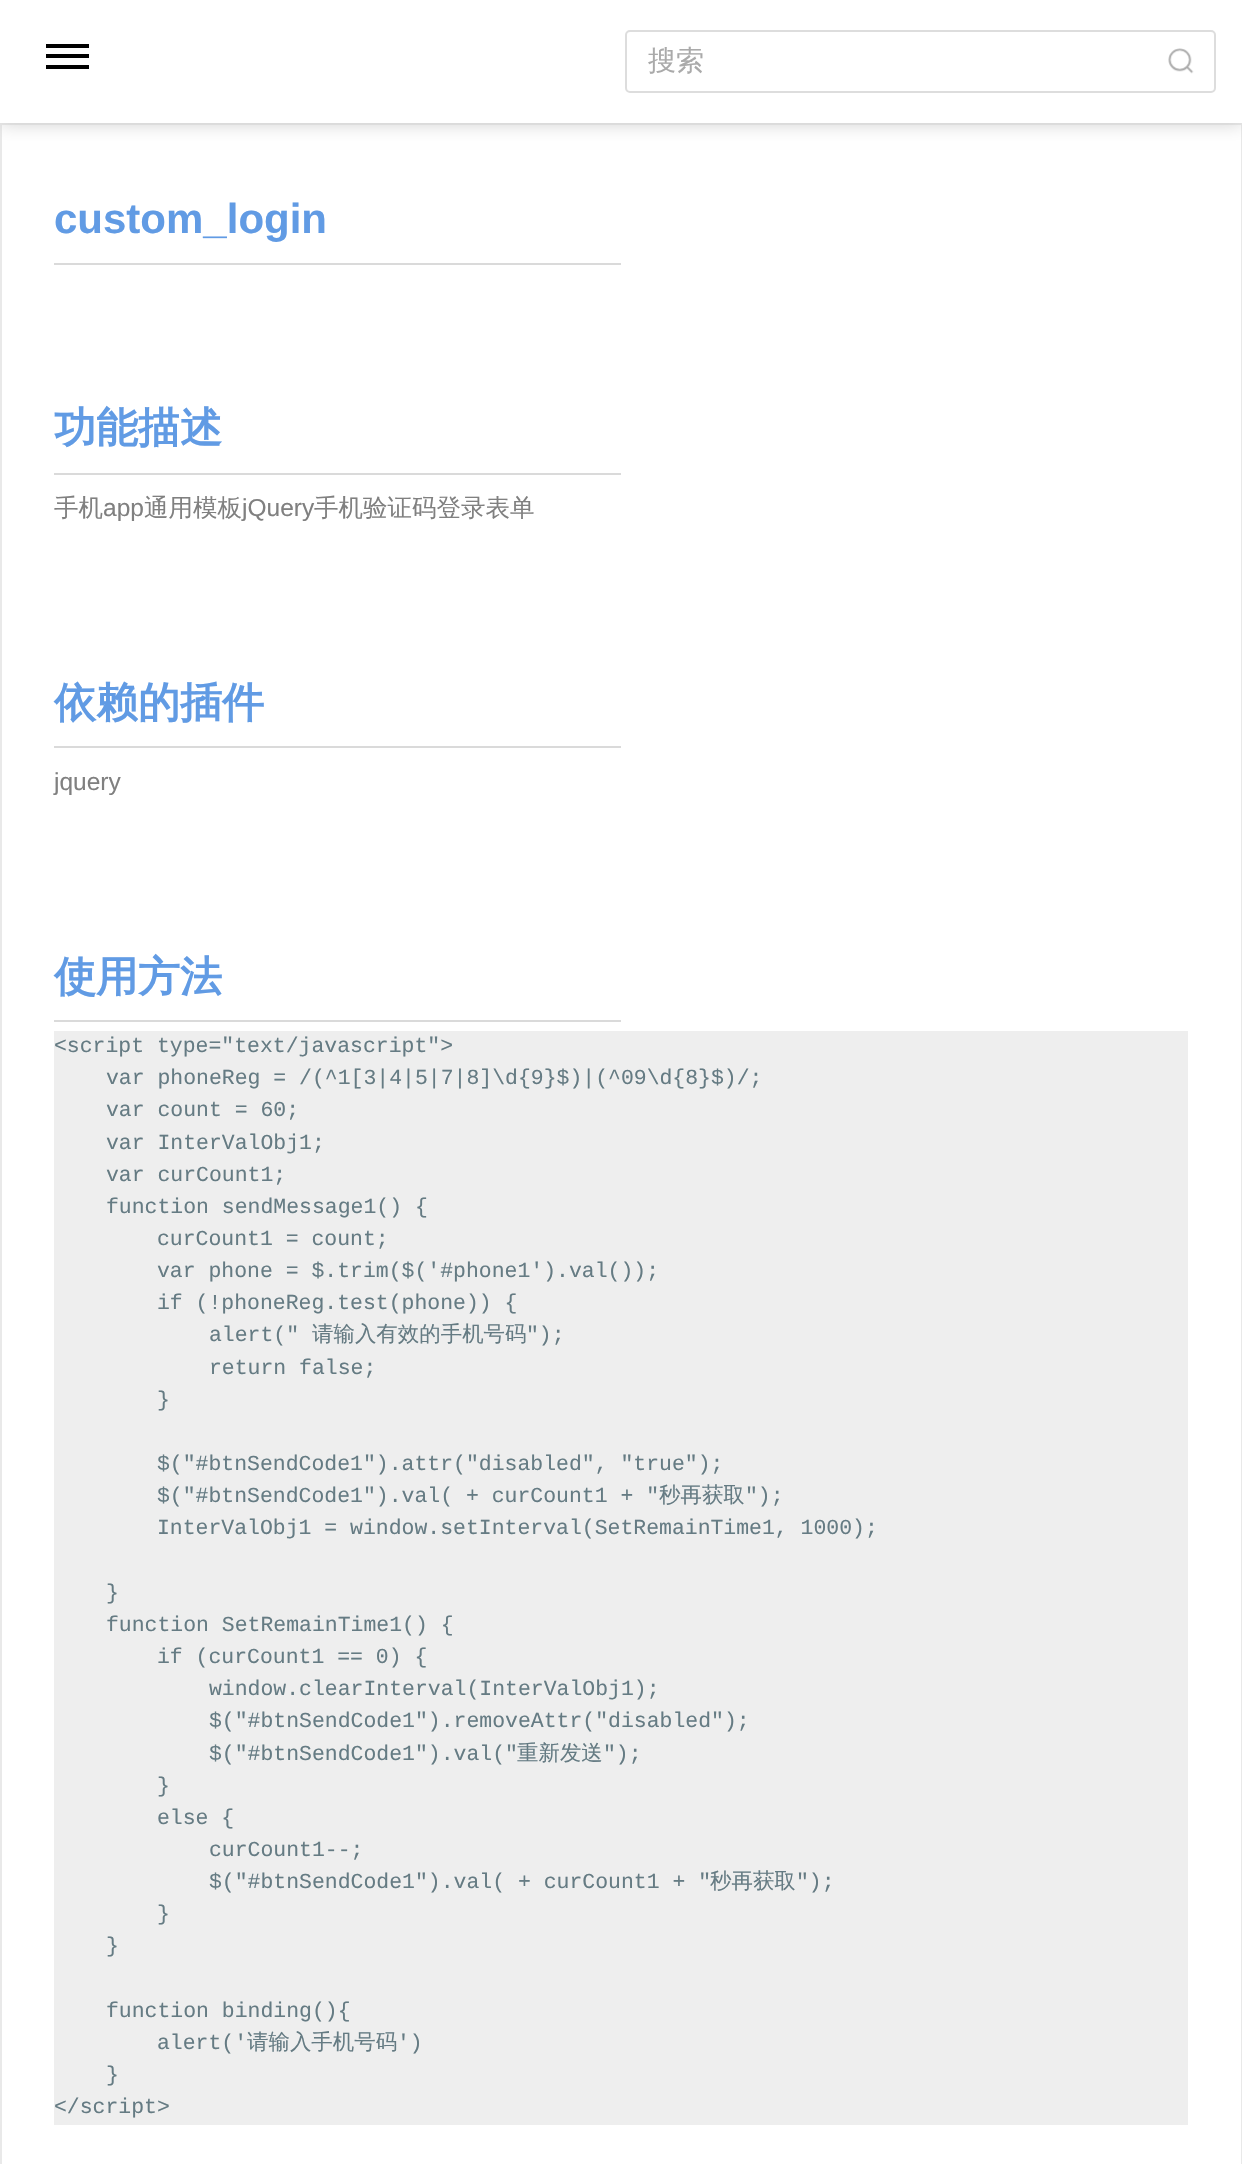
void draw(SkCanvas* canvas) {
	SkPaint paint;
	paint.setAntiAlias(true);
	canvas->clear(0xffffffff);
	paint.setStroke(true);
	paint.setStrokeWidth(2);
	paint.setColor(0xffe9e9e9);
	canvas->drawRect(SkRect::MakeXYWH(1, 124, 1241, 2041), paint);
	paint.setStroke(false);
	paint.setColor(0xffcccccc);
	paint.setMaskFilter(SkMaskFilter::MakeBlur(kNormal_SkBlurStyle, 9));
	canvas->drawRect(SkRect::MakeXYWH(0, 0, 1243, 123), paint);
	paint.setMaskFilter(nullptr);
	paint.setColor(0xffffffff);
	canvas->drawRect(SkRect::MakeXYWH(0, 0, 1242, 123), paint);
	paint.setColor(0xff000000);
	canvas->drawRect(SkRect::MakeXYWH(46, 44, 43, 4), paint);
	canvas->drawRect(SkRect::MakeXYWH(46, 54, 43, 4), paint);
	canvas->drawRect(SkRect::MakeXYWH(46, 65, 43, 4), paint);
	paint.setStroke(true);
	paint.setColor(0xffdddddd);
	canvas->drawRoundRect(SkRect::MakeXYWH(626, 31, 589, 61), 4, 4, paint);
	SkFont f1(fontMgr->matchFamilyStyle("WenQuanYi Zen Hei", SkFontStyle(500, SkFontStyle::kNormal_Width, SkFontStyle::kUpright_Slant)), 28);
	f1.setSubpixel(true);
	paint.setStroke(false);
	paint.setColor(0xffaaaaaa);
	canvas->drawString("搜索", 648, 70, f1, paint);
	canvas->drawImageRect(SkImages::DeferredFromEncodedData(SkData::MakeFromFileName("img1.png")), SkRect::MakeXYWH(1168, 48, 26, 26), SkSamplingOptions());
	paint.setColor(0xffdadada);
	canvas->drawRect(SkRect::MakeXYWH(54, 263, 567, 2), paint);
	SkFont f2(fontMgr->matchFamilyStyle("Liberation Sans", SkFontStyle::Bold()), 42);
	f2.setSubpixel(true);
	paint.setColor(0xff619be4);
	canvas->drawString("custom_login", 54, 233, f2, paint);
	paint.setColor(0xffdadada);
	canvas->drawRect(SkRect::MakeXYWH(54, 473, 567, 2), paint);
	SkFont f3(fontMgr->matchFamilyStyle("WenQuanYi Zen Hei", SkFontStyle::Bold()), 42);
	f3.setSubpixel(true);
	paint.setColor(0xff619be4);
	canvas->drawString("功能描述", 54, 442, f3, paint);
	SkFont f4(fontMgr->matchFamilyStyle("WenQuanYi Zen Hei", SkFontStyle(500, SkFontStyle::kNormal_Width, SkFontStyle::kUpright_Slant)), 24.5);
	f4.setSubpixel(true);
	paint.setColor(0xff808080);
	canvas->drawString("手机", 54, 516, f4, paint);
	SkFont f5(fontMgr->matchFamilyStyle("Liberation Sans", SkFontStyle::Normal()), 24.5);
	f5.setSubpixel(true);
	canvas->drawString("app", 103, 516, f5, paint);
	canvas->drawString("通用模板", 144, 516, f4, paint);
	canvas->drawString("jQuery", 242, 516, f5, paint);
	canvas->drawString("手机验证码登录表单", 314, 516, f4, paint);
	paint.setColor(0xffdadada);
	canvas->drawRect(SkRect::MakeXYWH(54, 746, 567, 2), paint);
	paint.setColor(0xff619be4);
	canvas->drawString("依赖的插件", 54, 717, f3, paint);
	paint.setColor(0xff808080);
	canvas->drawString("jquery", 54, 790, f5, paint);
	paint.setColor(0xffdadada);
	canvas->drawRect(SkRect::MakeXYWH(54, 1020, 567, 2), paint);
	paint.setColor(0xff619be4);
	canvas->drawString("使用方法", 54, 991, f3, paint);
	paint.setColor(0xffeeeeee);
	canvas->drawRect(SkRect::MakeXYWH(54, 1031, 1134, 1094), paint);
	SkFont f6(fontMgr->matchFamilyStyle("Liberation Mono", SkFontStyle::Normal()), 21.45);
	f6.setSubpixel(true);
	paint.setColor(0xff657b83);
	canvas->drawString("<script type=\"text/javascript\">", 54, 1052, f6, paint);
	canvas->drawString("var phoneReg = /(^1[3|4|5|7|8]\\d{9}$)|(^09\\d{8}$)/;", 106, 1084, f6, paint);
	canvas->drawString("var count = 60;", 106, 1116, f6, paint);
	canvas->drawString("var InterValObj1;", 106, 1149, f6, paint);
	canvas->drawString("var curCount1;", 106, 1181, f6, paint);
	canvas->drawString("function sendMessage1() {", 106, 1213, f6, paint);
	canvas->drawString("curCount1 = count;", 157, 1245, f6, paint);
	canvas->drawString("var phone = $.trim($('#phone1').val());", 157, 1277, f6, paint);
	canvas->drawString("if (!phoneReg.test(phone)) {", 157, 1309, f6, paint);
	canvas->drawString("alert(\"", 209, 1341, f6, paint);
	SkFont f7(fontMgr->matchFamilyStyle("WenQuanYi Zen Hei", SkFontStyle(500, SkFontStyle::kNormal_Width, SkFontStyle::kUpright_Slant)), 21.45);
	f7.setSubpixel(true);
	canvas->drawString("请输入有效的手机号码", 312, 1341, f7, paint);
	canvas->drawString("\");", 526, 1341, f6, paint);
	canvas->drawString("return false;", 209, 1374, f6, paint);
	canvas->drawString("}", 157, 1406, f6, paint);
	canvas->drawString("$(\"#btnSendCode1\").attr(\"disabled\", \"true\");", 157, 1470, f6, paint);
	canvas->drawString("$(\"#btnSendCode1\").val( + curCount1 + \"", 157, 1502, f6, paint);
	canvas->drawString("秒再获取", 659, 1502, f7, paint);
	canvas->drawString("\");", 745, 1502, f6, paint);
	canvas->drawString("InterValObj1 = window.setInterval(SetRemainTime1, 1000);", 157, 1534, f6, paint);
	canvas->drawString("}", 106, 1599, f6, paint);
	canvas->drawString("function SetRemainTime1() {", 106, 1631, f6, paint);
	canvas->drawString("if (curCount1 == 0) {", 157, 1663, f6, paint);
	canvas->drawString("window.clearInterval(InterValObj1);", 209, 1695, f6, paint);
	canvas->drawString("$(\"#btnSendCode1\").removeAttr(\"disabled\");", 209, 1727, f6, paint);
	canvas->drawString("$(\"#btnSendCode1\").val(\"", 209, 1760, f6, paint);
	canvas->drawString("重新发送", 517, 1760, f7, paint);
	canvas->drawString("\");", 603, 1760, f6, paint);
	canvas->drawString("}", 157, 1792, f6, paint);
	canvas->drawString("else {", 157, 1824, f6, paint);
	canvas->drawString("curCount1--;", 209, 1856, f6, paint);
	canvas->drawString("$(\"#btnSendCode1\").val( + curCount1 + \"", 209, 1888, f6, paint);
	canvas->drawString("秒再获取", 710, 1888, f7, paint);
	canvas->drawString("\");", 796, 1888, f6, paint);
	canvas->drawString("}", 157, 1920, f6, paint);
	canvas->drawString("}", 106, 1952, f6, paint);
	canvas->drawString("function binding(){", 106, 2017, f6, paint);
	canvas->drawString("alert('", 157, 2049, f6, paint);
	canvas->drawString("请输入手机号码", 247, 2049, f7, paint);
	canvas->drawString("')", 397, 2049, f6, paint);
	canvas->drawString("}", 106, 2081, f6, paint);
	canvas->drawString("</script>", 54, 2113, f6, paint);
}
